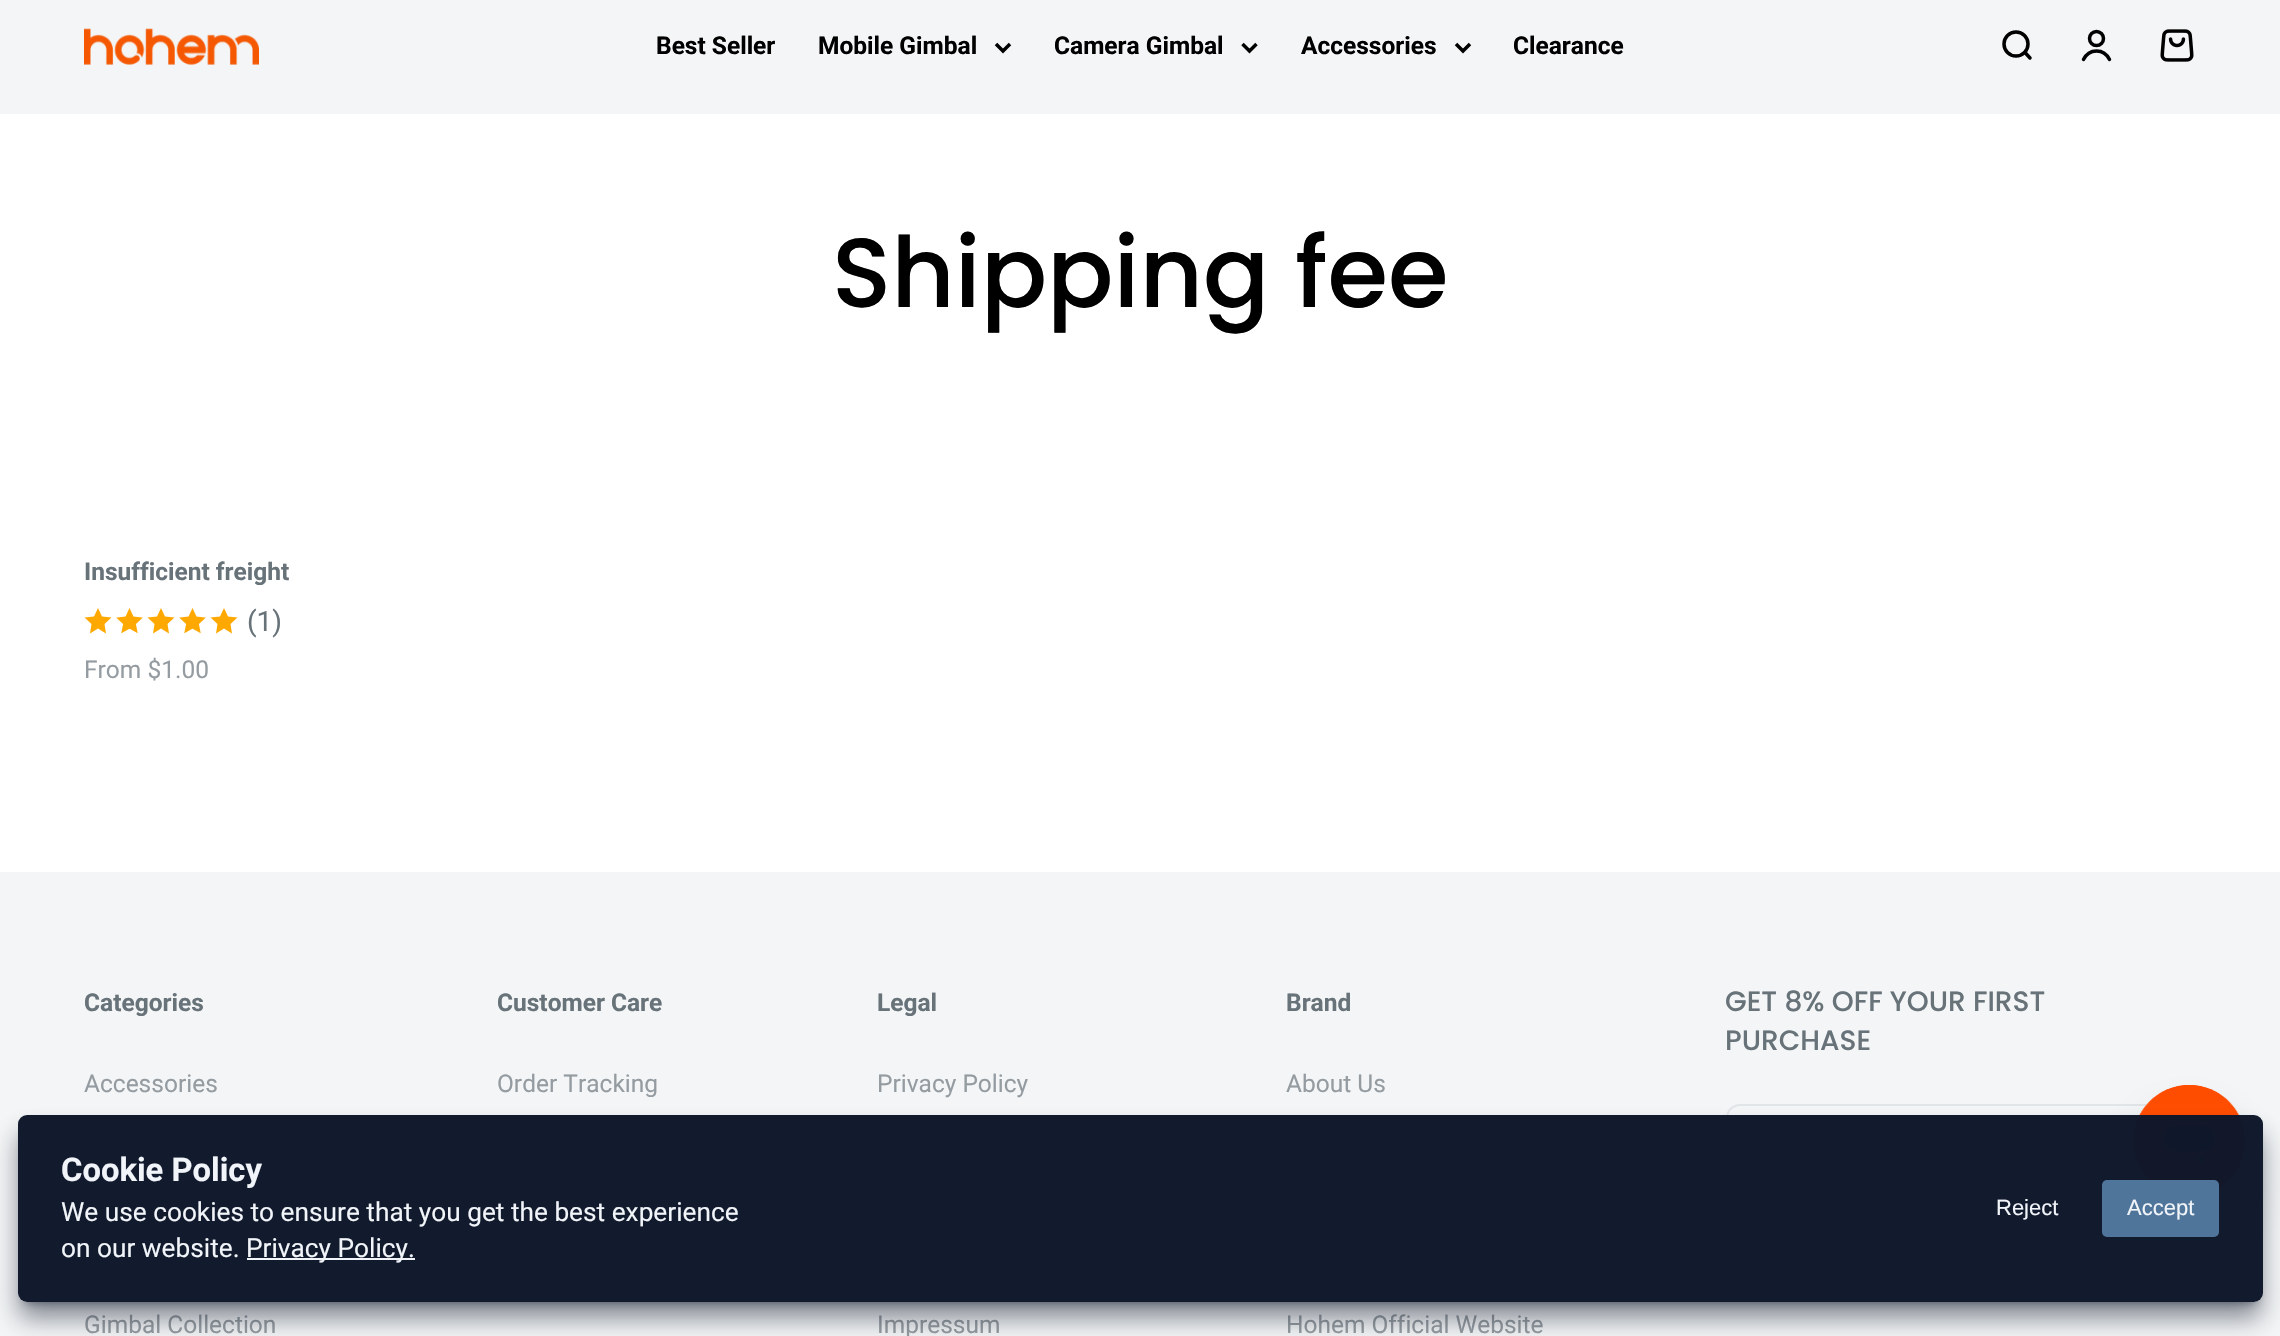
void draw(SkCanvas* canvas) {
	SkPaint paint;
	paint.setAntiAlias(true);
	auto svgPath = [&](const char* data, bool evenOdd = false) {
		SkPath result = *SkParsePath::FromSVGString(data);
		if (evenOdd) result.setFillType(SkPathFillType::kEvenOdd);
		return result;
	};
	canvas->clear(0xffffffff);
	paint.setColor(0xfff3f5f6);
	canvas->drawRect(SkRect::MakeXYWH(0, 0, 2280, 114), paint);
	canvas->drawImageRect(SkImages::DeferredFromEncodedData(SkData::MakeFromFileName("img1.png")), SkRect::MakeXYWH(84, 28, 175, 37), SkSamplingOptions());
	SkFont f1(fontMgr->matchFamilyStyle("Roboto", SkFontStyle::Bold()), 24.5);
	f1.setSubpixel(true);
	paint.setColor(0xff000000);
	canvas->drawString("Best Seller", 656, 54, f1, paint);
	canvas->drawString("Mobile Gimbal", 818, 54, f1, paint);
	paint.setStroke(true);
	paint.setStrokeWidth(3.5);
	canvas->drawPath(svgPath("M996 44L1003 51L1010 44"), paint);
	paint.setStroke(false);
	canvas->drawString("Camera Gimbal", 1054, 54, f1, paint);
	paint.setStroke(true);
	canvas->drawPath(svgPath("M1242.5 44L1249.5 51L1256.5 44"), paint);
	paint.setStroke(false);
	canvas->drawString("Accessories", 1301, 54, f1, paint);
	paint.setStroke(true);
	canvas->drawPath(svgPath("M1456 44L1463 51L1470 44"), paint);
	paint.setStroke(false);
	canvas->drawString("Clearance", 1513, 54, f1, paint);
	paint.setStroke(true);
	canvas->drawCircle(2016, 44, 12, paint);
	paint.setStrokeCap(SkPaint::kRound_Cap);
	paint.setStrokeJoin(SkPaint::kRound_Join);
	canvas->drawPath(svgPath("M2025 52.5L2030 58"), paint);
	paint.setStrokeCap(SkPaint::kButt_Cap);
	paint.setStrokeJoin(SkPaint::kMiter_Join);
	canvas->drawCircle(2096.5, 38.5, 7, paint);
	paint.setStrokeCap(SkPaint::kRound_Cap);
	canvas->drawPath(svgPath("M2083.5 59.5C2089 48 2104 48 2109.5 59.5"), paint);
	canvas->drawImageRect(SkImages::DeferredFromEncodedData(SkData::MakeFromFileName("img2.png")), SkRect::MakeXYWH(2160, 29, 34, 33), SkSamplingOptions());
	SkFont f2(fontMgr->matchFamilyStyle("Poppins", SkFontStyle(500, SkFontStyle::kNormal_Width, SkFontStyle::kUpright_Slant)), 98);
	f2.setSubpixel(true);
	paint.setStroke(false);
	canvas->drawString("Shipping fee", 832, 307, f2, paint);
	paint.setColor(0xff677279);
	canvas->drawString("Insufficient freight", 84, 580, f1, paint);
	paint.setColor(0xffffa800);
	canvas->drawPath(svgPath("M98 608L102 616.5L111.5 617.5L104.5 624L106 633.5L98 628.5L90 633.5L91.5 624L84.5 617.5L94 616.5Z"), paint);
	canvas->drawImageRect(SkImages::DeferredFromEncodedData(SkData::MakeFromFileName("img3.png")), SkRect::MakeXYWH(116, 608, 27, 26), SkSamplingOptions());
	canvas->drawPath(svgPath("M161 608L165 616.5L174.5 617.5L167.5 624L169 633.5L161 628.5L153 633.5L154.5 624L147.5 617.5L157 616.5Z"), paint);
	canvas->drawImageRect(SkImages::DeferredFromEncodedData(SkData::MakeFromFileName("img3.png")), SkRect::MakeXYWH(179, 608, 27, 26), SkSamplingOptions());
	canvas->drawPath(svgPath("M224 608L228 616.5L237.5 617.5L230.5 624L232 633.5L224 628.5L216 633.5L217.5 624L210.5 617.5L220 616.5Z"), paint);
	SkFont f3(fontMgr->matchFamilyStyle("Roboto", SkFontStyle::Normal()), 28);
	f3.setSubpixel(true);
	paint.setColor(0xff677279);
	canvas->drawString("(1)", 247, 631, f3, paint);
	SkFont f4(fontMgr->matchFamilyStyle("Roboto", SkFontStyle::Normal()), 24.5);
	f4.setSubpixel(true);
	paint.setColor(0xff959ca1);
	canvas->drawString("From $1.00", 84, 678, f4, paint);
	paint.setColor(0xfff3f5f6);
	canvas->drawRect(SkRect::MakeXYWH(0, 872, 2280, 464), paint);
	paint.setColor(0xff677279);
	canvas->drawString("Categories", 84, 1011, f1, paint);
	paint.setColor(0xff959ca1);
	canvas->drawString("Accessories", 84, 1092, f4, paint);
	canvas->drawString("Gimbal Collection", 84, 1333, f4, paint);
	paint.setColor(0xff677279);
	canvas->drawString("Customer Care", 497, 1011, f1, paint);
	paint.setColor(0xff959ca1);
	canvas->drawString("Order Tracking", 497, 1092, f4, paint);
	paint.setColor(0xff677279);
	canvas->drawString("Legal", 877, 1011, f1, paint);
	paint.setColor(0xff959ca1);
	canvas->drawString("Privacy Policy", 877, 1092, f4, paint);
	canvas->drawString("Impressum", 877, 1333, f4, paint);
	paint.setColor(0xff677279);
	canvas->drawString("Brand", 1286, 1011, f1, paint);
	paint.setColor(0xff959ca1);
	canvas->drawString("About Us", 1286, 1092, f4, paint);
	canvas->drawString("Hohem Official Website", 1286, 1333, f4, paint);
	SkFont f5(fontMgr->matchFamilyStyle("Poppins", SkFontStyle(500, SkFontStyle::kNormal_Width, SkFontStyle::kUpright_Slant)), 28);
	f5.setSubpixel(true);
	paint.setColor(0xff677279);
	canvas->drawString("GET 8% OFF YOUR FIRST", 1725, 1011, f5, paint);
	canvas->drawString("PURCHASE", 1725, 1050, f5, paint);
	paint.setStroke(true);
	paint.setStrokeWidth(2);
	paint.setStrokeCap(SkPaint::kButt_Cap);
	paint.setColor(0xffe2e5e7);
	canvas->drawRoundRect(SkRect::MakeXYWH(1727, 1105, 468, 103), 13, 13, paint);
	paint.setStroke(false);
	paint.setColor(0xffe5e8ea);
	canvas->drawCircle(2140, 1157, 21, paint);
	paint.setStroke(true);
	paint.setStrokeWidth(2.6);
	paint.setColor(0xff677279);
	canvas->drawPath(svgPath("M2138 1162L2143.5 1157L2138 1151.5"), paint);
	paint.setStroke(false);
	paint.setColor(0x2617494d);
	paint.setMaskFilter(SkMaskFilter::MakeBlur(kNormal_SkBlurStyle, 26));
	canvas->drawRoundRect(SkRect::MakeXYWH(2133, 1120, 112, 112), 56, 56, paint);
	paint.setMaskFilter(nullptr);
	canvas->drawImageRect(SkImages::DeferredFromEncodedData(SkData::MakeFromFileName("img4.png")), SkRect::MakeXYWH(2133, 1085, 113, 104), SkSamplingOptions());
	canvas->save();
	canvas->clipPath(svgPath("M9 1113H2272V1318H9ZM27 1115H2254C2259 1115 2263 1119 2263 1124V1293C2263 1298 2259 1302 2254 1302H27C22 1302 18 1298 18 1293V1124C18 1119 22 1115 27 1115Z", true), true);
	paint.setColor(0x800f172a);
	paint.setMaskFilter(SkMaskFilter::MakeBlur(kNormal_SkBlurStyle, 5));
	canvas->drawRoundRect(SkRect::MakeXYWH(25, 1129, 2231, 173), 2, 2, paint);
	paint.setMaskFilter(nullptr);
	canvas->restore();
	canvas->save();
	canvas->clipPath(svgPath("M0 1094H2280V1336H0ZM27 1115H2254C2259 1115 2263 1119 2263 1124V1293C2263 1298 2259 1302 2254 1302H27C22 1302 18 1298 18 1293V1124C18 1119 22 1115 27 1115Z", true), true);
	paint.setMaskFilter(SkMaskFilter::MakeBlur(kNormal_SkBlurStyle, 13));
	canvas->drawRoundRect(SkRect::MakeXYWH(19, 1134, 2242, 184), 7, 7, paint);
	paint.setMaskFilter(nullptr);
	canvas->restore();
	paint.setColor(0xfc0f172a);
	canvas->drawRoundRect(SkRect::MakeXYWH(18, 1115, 2245, 187), 9, 9, paint);
	SkFont f6(fontMgr->matchFamilyStyle("Roboto", SkFontStyle::Bold()), 32.75);
	f6.setSubpixel(true);
	paint.setColor(0xfff1f5f9);
	canvas->drawString("Cookie Policy", 61, 1181, f6, paint);
	SkFont f7(fontMgr->matchFamilyStyle("Roboto", SkFontStyle::Normal()), 26.25);
	f7.setSubpixel(true);
	canvas->drawString("We use cookies to ensure that you get the best experience", 61, 1221, f7, paint);
	canvas->drawString("on our website.", 61, 1257, f7, paint);
	canvas->drawRect(SkRect::MakeXYWH(247, 1258, 168, 2), paint);
	canvas->drawString("Privacy Policy.", 246, 1257, f7, paint);
	SkFont f8(fontMgr->matchFamilyStyle("Liberation Sans", SkFontStyle::Normal()), 22);
	f8.setSubpixel(true);
	canvas->drawString("Reject", 1996, 1215, f8, paint);
	paint.setColor(0xff4f759b);
	canvas->drawRoundRect(SkRect::MakeXYWH(2102, 1180, 117, 57), 5, 5, paint);
	paint.setColor(0xfff1f5f9);
	canvas->drawString("Accept", 2127, 1215, f8, paint);
}
